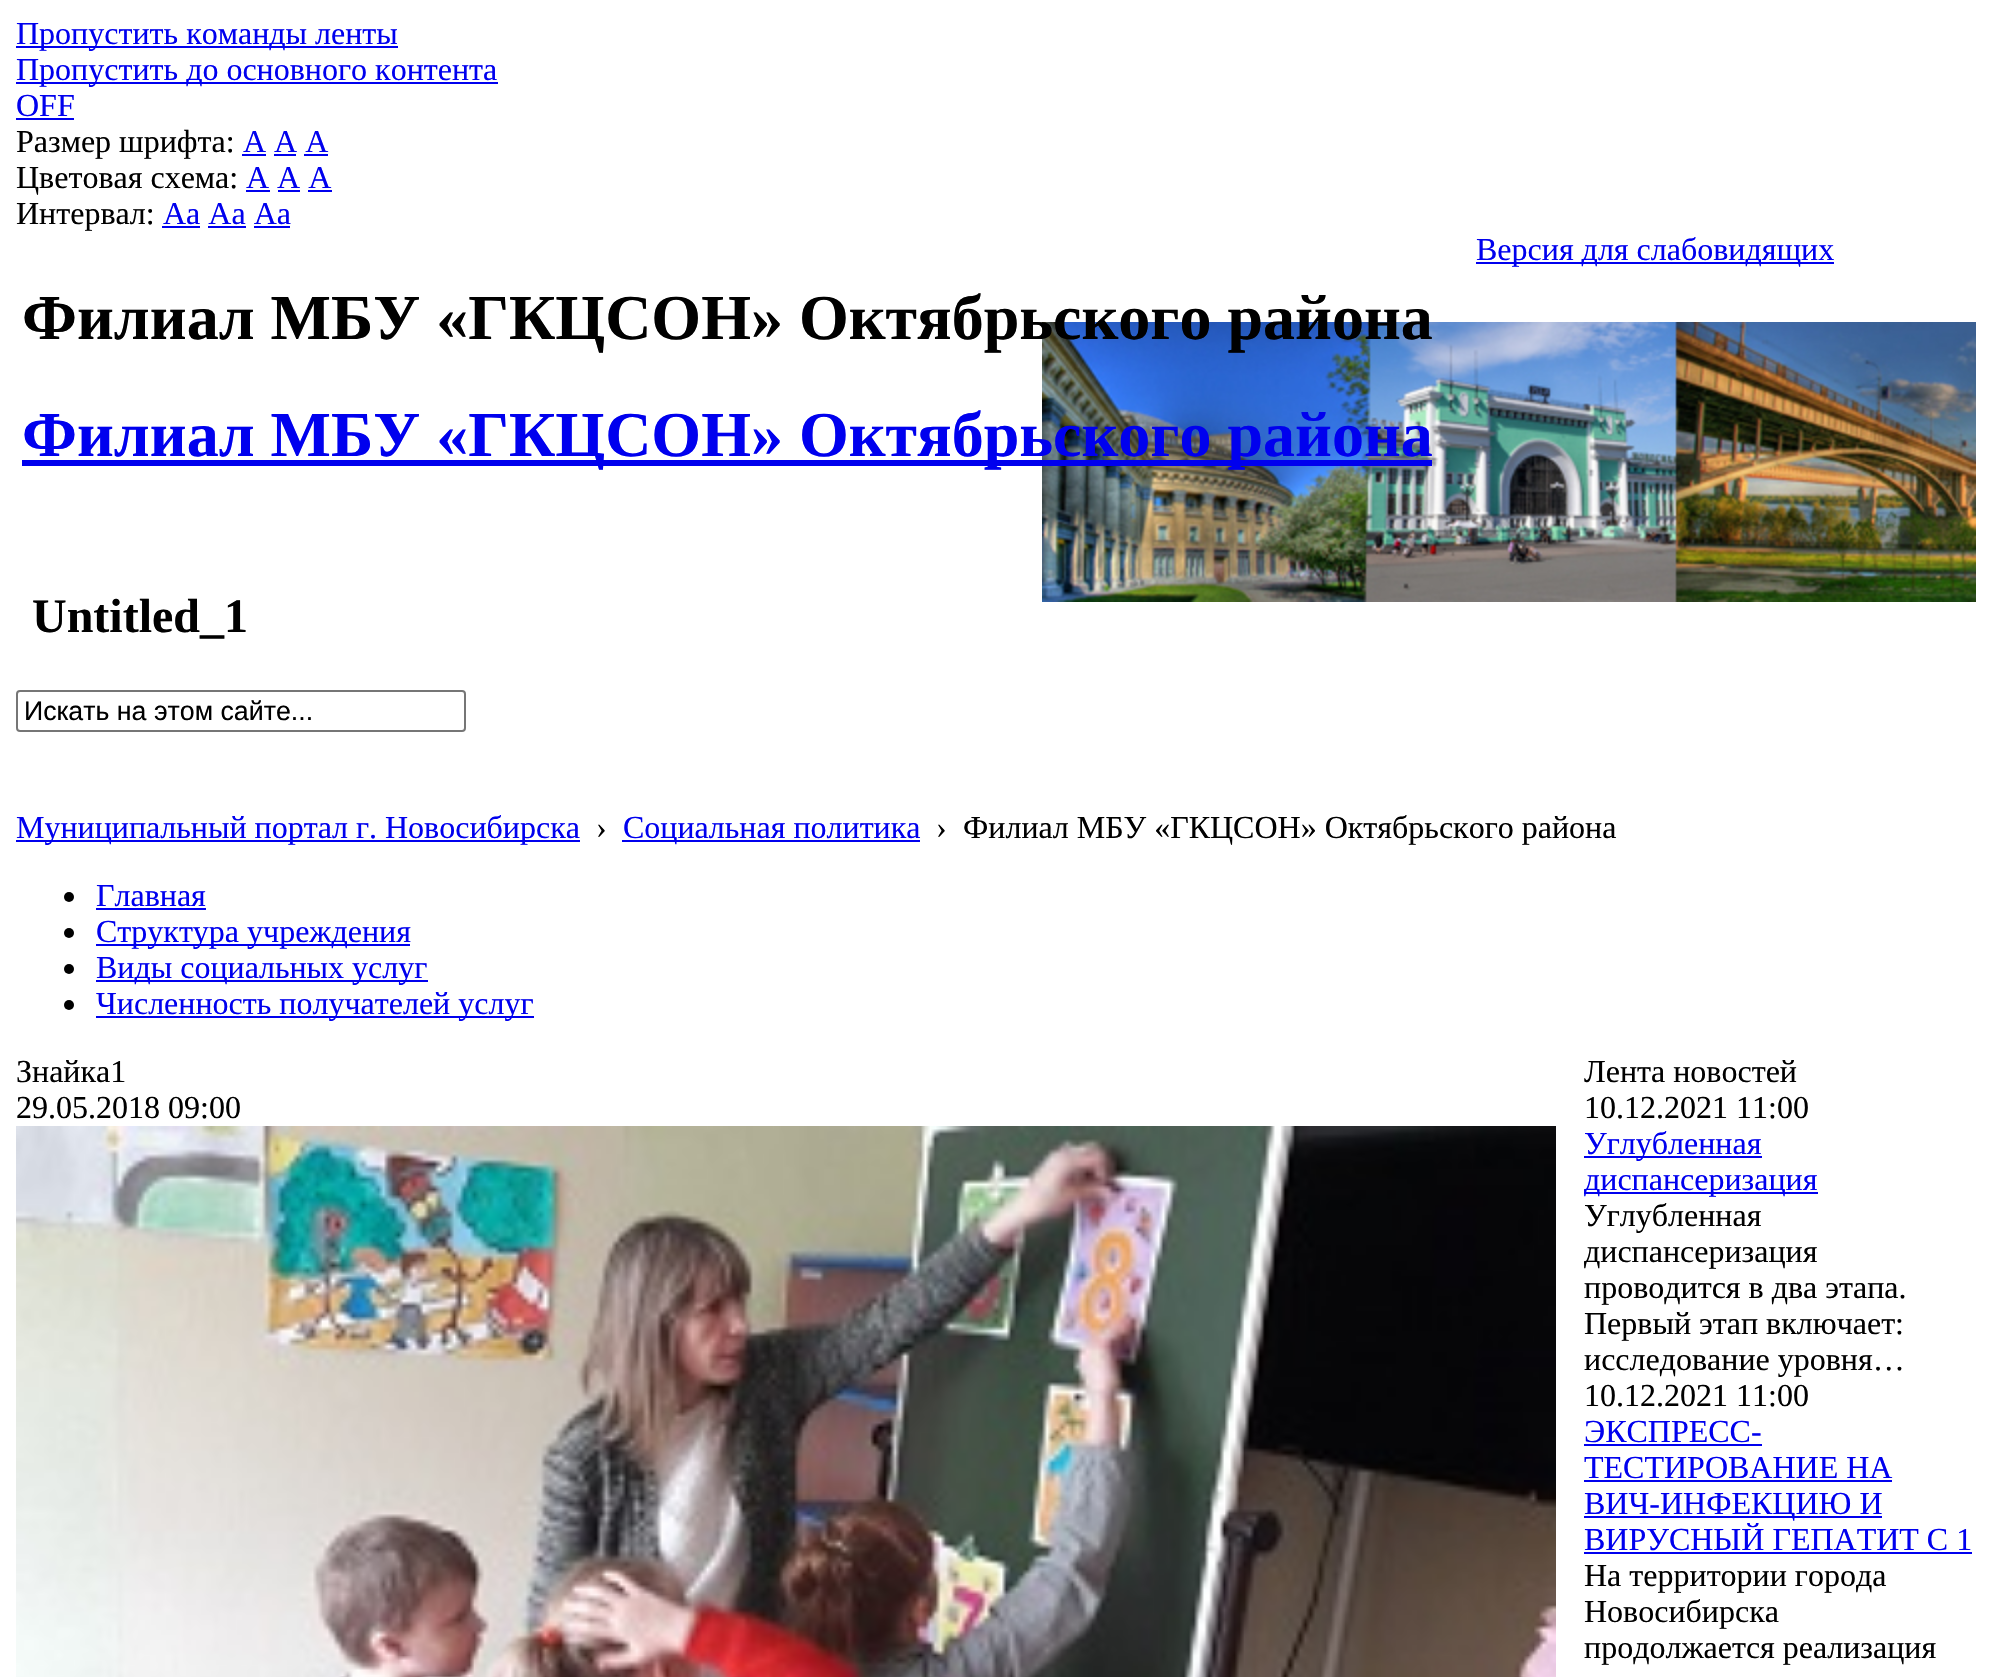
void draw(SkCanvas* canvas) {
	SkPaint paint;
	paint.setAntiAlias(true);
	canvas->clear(0xffffffff);
	paint.setColor(0xff0000ee);
	canvas->drawRect(SkRect::MakeXYWH(16, 46, 382, 2), paint);
	SkFont f1(fontMgr->matchFamilyStyle("Liberation Serif", SkFontStyle::Normal()), 32);
	f1.setSubpixel(true);
	canvas->drawString("Пропустить команды ленты", 16, 44, f1, paint);
	canvas->drawRect(SkRect::MakeXYWH(16, 82, 482, 2), paint);
	canvas->drawString("Пропустить до основного контента", 16, 80, f1, paint);
	canvas->drawString("OFF", 16, 116, f1, paint);
	canvas->drawRect(SkRect::MakeXYWH(16, 118, 58, 2), paint);
	paint.setColor(0xff000000);
	canvas->drawString("Размер шрифта:", 16, 152, f1, paint);
	paint.setColor(0xff0000ee);
	canvas->drawString("A A A", 243, 152, f1, paint);
	canvas->drawRect(SkRect::MakeXYWH(242, 154, 24, 2), paint);
	canvas->drawRect(SkRect::MakeXYWH(274, 154, 22, 2), paint);
	canvas->drawRect(SkRect::MakeXYWH(304, 154, 24, 2), paint);
	paint.setColor(0xff000000);
	canvas->drawString("Цветовая схема:", 16, 188, f1, paint);
	paint.setColor(0xff0000ee);
	canvas->drawString("A A A", 246, 188, f1, paint);
	canvas->drawRect(SkRect::MakeXYWH(246, 190, 24, 2), paint);
	canvas->drawRect(SkRect::MakeXYWH(278, 190, 22, 2), paint);
	canvas->drawRect(SkRect::MakeXYWH(308, 190, 24, 2), paint);
	paint.setColor(0xff000000);
	canvas->drawString("Интервал:", 16, 224, f1, paint);
	paint.setColor(0xff0000ee);
	canvas->drawString("Aa Aa Aa", 163, 224, f1, paint);
	canvas->drawRect(SkRect::MakeXYWH(162, 226, 38, 2), paint);
	canvas->drawRect(SkRect::MakeXYWH(208, 226, 38, 2), paint);
	canvas->drawRect(SkRect::MakeXYWH(254, 226, 36, 2), paint);
	canvas->drawRect(SkRect::MakeXYWH(1476, 262, 358, 2), paint);
	canvas->drawString("Версия для слабовидящих", 1476, 260, f1, paint);
	canvas->drawImageRect(SkImages::DeferredFromEncodedData(SkData::MakeFromFileName("img1.png")), SkRect::MakeXYWH(1042, 322, 934, 280), SkSamplingOptions());
	SkFont f2(fontMgr->matchFamilyStyle("Liberation Serif", SkFontStyle::Bold()), 64);
	f2.setSubpixel(true);
	paint.setColor(0xff000000);
	canvas->drawString("Филиал МБУ «ГКЦСОН» Октябрьского района", 22, 339, f2, paint);
	paint.setColor(0xff0000ee);
	canvas->drawRect(SkRect::MakeXYWH(22, 460, 1410, 6), paint);
	canvas->drawString("Филиал МБУ «ГКЦСОН» Октябрьского района", 22, 456, f2, paint);
	SkFont f3(fontMgr->matchFamilyStyle("Liberation Serif", SkFontStyle::Bold()), 48);
	f3.setSubpixel(true);
	paint.setColor(0xff000000);
	canvas->drawString("Untitled_1", 32, 632, f3, paint);
	paint.setStroke(true);
	paint.setStrokeWidth(2);
	paint.setColor(0xff767676);
	canvas->drawRoundRect(SkRect::MakeXYWH(17, 691, 448, 40), 3, 3, paint);
	SkFont f4(fontMgr->matchFamilyStyle("Liberation Sans", SkFontStyle::Normal()), 26.75);
	f4.setSubpixel(true);
	paint.setStroke(false);
	paint.setColor(0xff000000);
	canvas->drawString("Искать на этом сайте...", 24, 720, f4, paint);
	paint.setColor(0xff0000ee);
	canvas->drawRect(SkRect::MakeXYWH(16, 840, 564, 2), paint);
	canvas->drawString("Муниципальный портал г. Новосибирска", 16, 838, f1, paint);
	paint.setColor(0xff000000);
	canvas->drawString("›", 596, 838, f1, paint);
	paint.setColor(0xff0000ee);
	canvas->drawRect(SkRect::MakeXYWH(622, 840, 298, 2), paint);
	canvas->drawString("Социальная политика", 623, 838, f1, paint);
	paint.setColor(0xff000000);
	canvas->drawString("›", 936, 838, f1, paint);
	canvas->drawString("Филиал МБУ «ГКЦСОН» Октябрьского района", 963, 838, f1, paint);
	canvas->drawCircle(69, 897, 5, paint);
	paint.setColor(0xff0000ee);
	canvas->drawString("Главная", 96, 906, f1, paint);
	canvas->drawRect(SkRect::MakeXYWH(96, 908, 110, 2), paint);
	paint.setColor(0xff000000);
	canvas->drawCircle(69, 933, 5, paint);
	paint.setColor(0xff0000ee);
	canvas->drawRect(SkRect::MakeXYWH(96, 944, 314, 2), paint);
	canvas->drawString("Структура учреждения", 96, 942, f1, paint);
	paint.setColor(0xff000000);
	canvas->drawCircle(69, 969, 5, paint);
	paint.setColor(0xff0000ee);
	canvas->drawRect(SkRect::MakeXYWH(96, 980, 332, 2), paint);
	canvas->drawString("Виды социальных услуг", 96, 978, f1, paint);
	paint.setColor(0xff000000);
	canvas->drawCircle(69, 1005, 5, paint);
	paint.setColor(0xff0000ee);
	canvas->drawRect(SkRect::MakeXYWH(96, 1016, 438, 2), paint);
	canvas->drawString("Численность получателей услуг", 96, 1014, f1, paint);
	paint.setColor(0xff000000);
	canvas->drawString("Знайка1", 16, 1082, f1, paint);
	canvas->drawString("29.05.2018 09:00", 16, 1118, f1, paint);
	canvas->drawImageRect(SkImages::DeferredFromEncodedData(SkData::MakeFromFileName("img2.png")), SkRect::MakeXYWH(16, 1126, 1540, 551), SkSamplingOptions());
	canvas->drawString("Лента новостей", 1584, 1082, f1, paint);
	canvas->drawString("10.12.2021 11:00", 1584, 1118, f1, paint);
	paint.setColor(0xff0000ee);
	canvas->drawRect(SkRect::MakeXYWH(1584, 1156, 178, 2), paint);
	canvas->drawString("Углубленная", 1584, 1154, f1, paint);
	canvas->drawRect(SkRect::MakeXYWH(1584, 1192, 234, 2), paint);
	canvas->drawString("диспансеризация", 1584, 1190, f1, paint);
	paint.setColor(0xff000000);
	canvas->drawString("Углубленная", 1584, 1226, f1, paint);
	canvas->drawString("диспансеризация", 1584, 1262, f1, paint);
	canvas->drawString("проводится в два этапа.", 1584, 1298, f1, paint);
	canvas->drawString("Первый этап включает:", 1584, 1334, f1, paint);
	canvas->drawString("исследование уровня…", 1584, 1370, f1, paint);
	canvas->drawString("10.12.2021 11:00", 1584, 1406, f1, paint);
	paint.setColor(0xff0000ee);
	canvas->drawString("ЭКСПРЕСС-", 1584, 1442, f1, paint);
	canvas->drawRect(SkRect::MakeXYWH(1584, 1444, 178, 2), paint);
	canvas->drawString("ТЕСТИРОВАНИЕ НА", 1584, 1478, f1, paint);
	canvas->drawRect(SkRect::MakeXYWH(1584, 1480, 308, 2), paint);
	canvas->drawRect(SkRect::MakeXYWH(1584, 1516, 298, 2), paint);
	canvas->drawString("ВИЧ-ИНФЕКЦИЮ И", 1584, 1514, f1, paint);
	canvas->drawString("ВИРУСНЫЙ ГЕПАТИТ С 1", 1584, 1550, f1, paint);
	canvas->drawRect(SkRect::MakeXYWH(1584, 1552, 388, 2), paint);
	paint.setColor(0xff000000);
	canvas->drawString("На территории города", 1584, 1586, f1, paint);
	canvas->drawString("Новосибирска", 1584, 1622, f1, paint);
	canvas->drawString("продолжается реализация", 1584, 1658, f1, paint);
}
